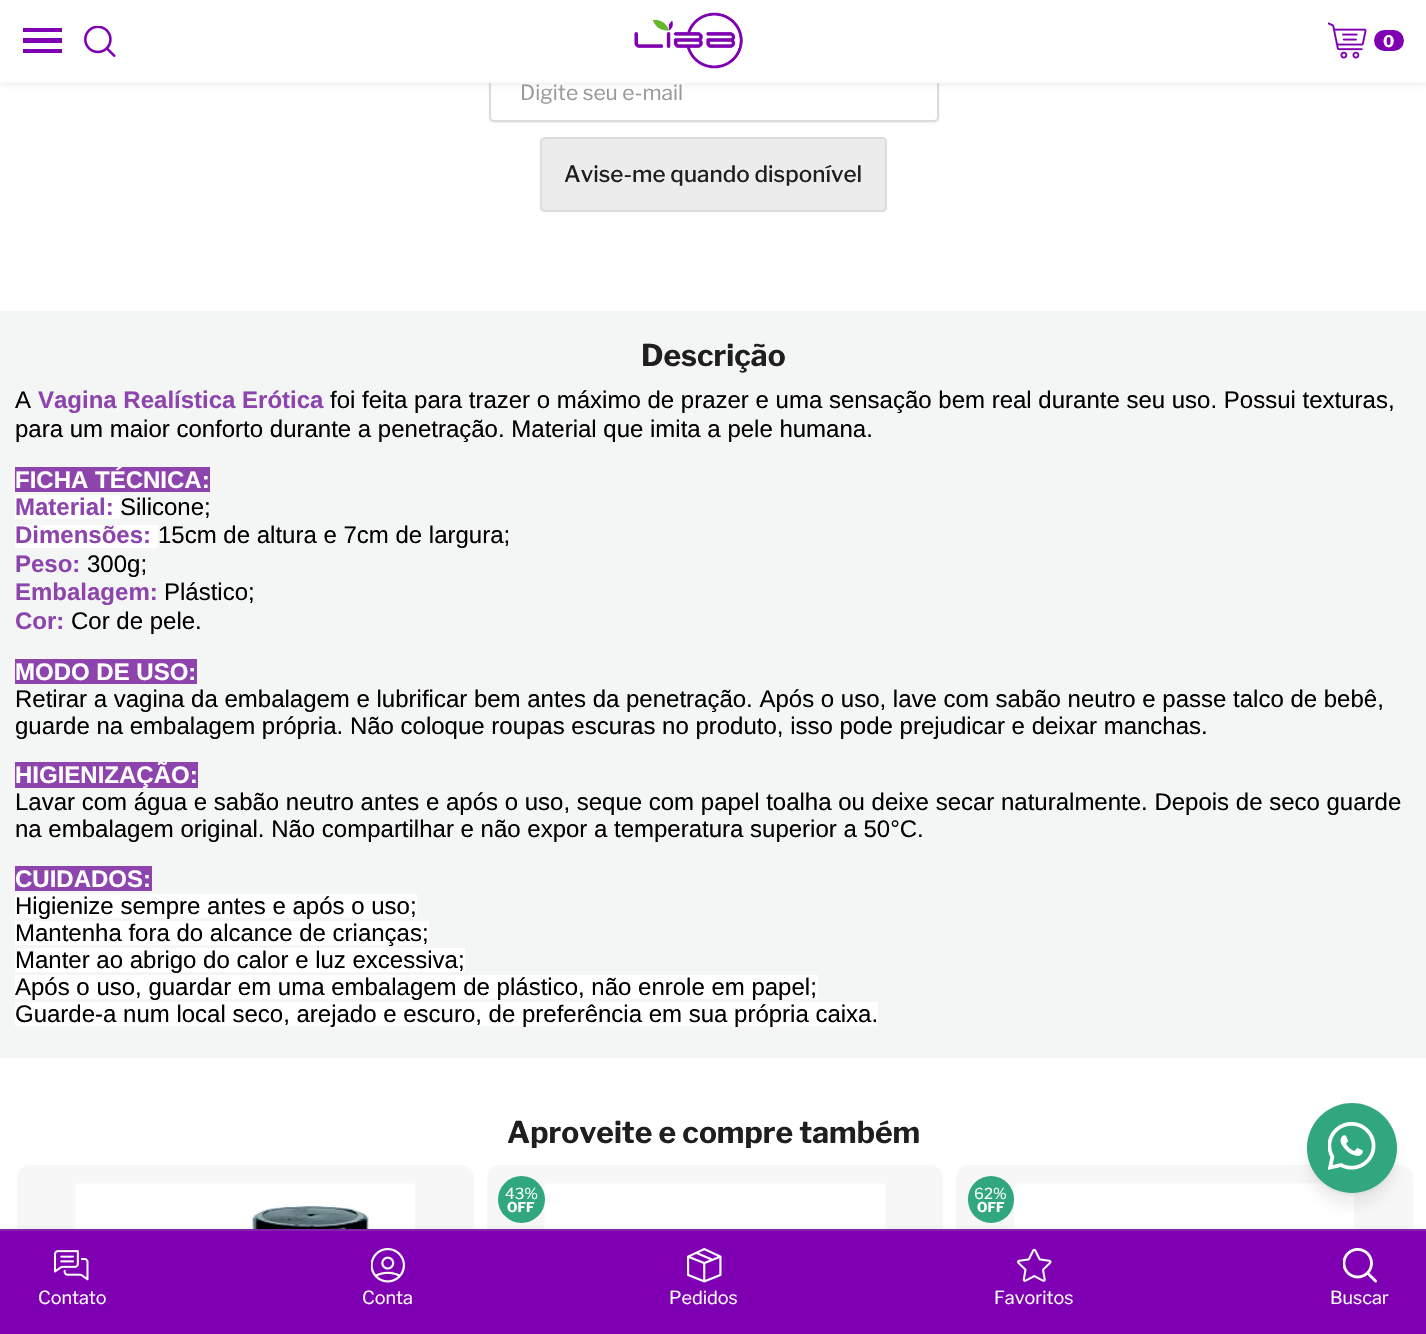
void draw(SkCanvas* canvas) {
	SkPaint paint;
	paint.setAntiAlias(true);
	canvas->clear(0xffffffff);
	paint.setColor(0x59cdcdcd);
	paint.setMaskFilter(SkMaskFilter::MakeBlur(kNormal_SkBlurStyle, 1));
	canvas->drawRoundRect(SkRect::MakeXYWH(489, 63, 450, 60), 5, 5, paint);
	paint.setMaskFilter(nullptr);
	paint.setColor(0xffffffff);
	canvas->drawRoundRect(SkRect::MakeXYWH(490, 63, 448, 58), 4, 4, paint);
	paint.setStroke(true);
	paint.setStrokeWidth(2);
	paint.setColor(0xffdcdcdc);
	canvas->drawRoundRect(SkRect::MakeXYWH(490, 63, 448, 58), 4, 4, paint);
	paint.setStroke(false);
	paint.setColor(0x21525252);
	paint.setMaskFilter(SkMaskFilter::MakeBlur(kNormal_SkBlurStyle, 3));
	canvas->drawRect(SkRect::MakeXYWH(0, 2, 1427, 82), paint);
	paint.setMaskFilter(nullptr);
	paint.setColor(0xffffffff);
	canvas->drawRect(SkRect::MakeXYWH(0, 0, 1426, 81), paint);
	paint.setColor(0xfffcfcfc);
	canvas->drawRect(SkRect::MakeXYWH(0, 81, 1426, 2), paint);
	paint.setColor(0xff7f00b2);
	canvas->drawRect(SkRect::MakeXYWH(23, 49, 39, 4), paint);
	canvas->drawRect(SkRect::MakeXYWH(23, 38, 39, 5), paint);
	canvas->drawRect(SkRect::MakeXYWH(23, 28, 39, 4), paint);
	canvas->drawImageRect(SkImages::DeferredFromEncodedData(SkData::MakeFromFileName("img1.png")), SkRect::MakeXYWH(84, 26, 32, 31), SkSamplingOptions());
	canvas->drawImageRect(SkImages::DeferredFromEncodedData(SkData::MakeFromFileName("img2.png")), SkRect::MakeXYWH(634, 12, 109, 57), SkSamplingOptions());
	canvas->drawImageRect(SkImages::DeferredFromEncodedData(SkData::MakeFromFileName("img3.png")), SkRect::MakeXYWH(1328, 22, 39, 37), SkSamplingOptions());
	canvas->drawRoundRect(SkRect::MakeXYWH(1374, 30, 30, 21), 10.5, 10.5, paint);
	SkFont f1(fontMgr->matchFamilyStyle("Libre Franklin", SkFontStyle::Bold()), 16);
	f1.setSubpixel(true);
	paint.setColor(0xffffffff);
	canvas->drawString("0", 1383, 47, f1, paint);
	SkFont f2(fontMgr->matchFamilyStyle("Libre Franklin", SkFontStyle::Normal()), 21);
	f2.setSubpixel(true);
	paint.setColor(0xff999999);
	canvas->drawString("Digite seu e-mail", 520, 100, f2, paint);
	canvas->save();
	canvas->clipRect(SkRect::MakeXYWH(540, 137, 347, 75));
	paint.setColor(0x59cdcdcd);
	paint.setMaskFilter(SkMaskFilter::MakeBlur(kNormal_SkBlurStyle, 1));
	canvas->drawRoundRect(SkRect::MakeXYWH(540, 138, 347, 75), 5, 5, paint);
	paint.setMaskFilter(nullptr);
	canvas->restore();
	paint.setColor(0xffececec);
	canvas->drawRoundRect(SkRect::MakeXYWH(541, 138, 345, 73), 4, 4, paint);
	paint.setStroke(true);
	paint.setColor(0xffdcdcdc);
	canvas->drawRoundRect(SkRect::MakeXYWH(541, 138, 345, 73), 4, 4, paint);
	SkFont f3(fontMgr->matchFamilyStyle("Libre Franklin", SkFontStyle(500, SkFontStyle::kNormal_Width, SkFontStyle::kUpright_Slant)), 22.5);
	f3.setSubpixel(true);
	paint.setStroke(false);
	paint.setColor(0xff201f1f);
	canvas->drawString("Avise-me quando disponível", 564, 182, f3, paint);
	paint.setColor(0xfff3f6f4);
	canvas->drawRect(SkRect::MakeXYWH(0, 311, 1426, 747), paint);
	SkFont f4(fontMgr->matchFamilyStyle("Libre Franklin", SkFontStyle::Bold()), 30);
	f4.setSubpixel(true);
	paint.setColor(0xff201f1f);
	canvas->drawString("Descrição", 641, 366, f4, paint);
	SkFont f5(fontMgr->matchFamilyStyle("Liberation Sans", SkFontStyle::Normal()), 24);
	f5.setSubpixel(true);
	paint.setColor(0xff000000);
	canvas->drawString("A", 15, 408, f5, paint);
	SkFont f6(fontMgr->matchFamilyStyle("Liberation Sans", SkFontStyle::Bold()), 24);
	f6.setSubpixel(true);
	paint.setColor(0xff8e44ad);
	canvas->drawString("Vagina Realística Erótica", 38, 408, f6, paint);
	paint.setColor(0xff000000);
	canvas->drawString("foi feita para trazer o máximo de prazer e uma sensação bem real durante seu uso. Possui texturas,", 330, 408, f5, paint);
	canvas->drawString("para um maior conforto durante a penetração. Material que imita a pele humana.", 15, 437, f5, paint);
	paint.setColor(0xff8e44ad);
	canvas->drawRect(SkRect::MakeXYWH(15, 467, 195, 25), paint);
	paint.setColor(0xffffffff);
	canvas->drawString("FICHA TÉCNICA:", 15, 488, f6, paint);
	canvas->drawRect(SkRect::MakeXYWH(15, 495, 105, 24), paint);
	paint.setColor(0xff8e44ad);
	canvas->drawString("Material:", 15, 515, f6, paint);
	paint.setColor(0xff000000);
	canvas->drawString("Silicone;", 120, 515, f5, paint);
	paint.setColor(0xffffffff);
	canvas->drawRect(SkRect::MakeXYWH(15, 525, 143, 23), paint);
	paint.setColor(0xff8e44ad);
	canvas->drawString("Dimensões:", 15, 543, f6, paint);
	paint.setColor(0xff000000);
	canvas->drawString("15cm de altura e 7cm de largura;", 158, 543, f5, paint);
	paint.setColor(0xff8e44ad);
	canvas->drawString("Peso:", 15, 572, f6, paint);
	paint.setColor(0xff000000);
	canvas->drawString("300g;", 87, 572, f5, paint);
	paint.setColor(0xff8e44ad);
	canvas->drawString("Embalagem:", 15, 600, f6, paint);
	paint.setColor(0xff000000);
	canvas->drawString("Plástico;", 164, 600, f5, paint);
	paint.setColor(0xff8e44ad);
	canvas->drawString("Cor:", 15, 629, f6, paint);
	paint.setColor(0xff000000);
	canvas->drawString("Cor de pele.", 71, 629, f5, paint);
	paint.setColor(0xff8e44ad);
	canvas->drawRect(SkRect::MakeXYWH(15, 659, 182, 25), paint);
	paint.setColor(0xffffffff);
	canvas->drawString("MODO DE USO:", 15, 680, f6, paint);
	paint.setColor(0xff000000);
	canvas->drawString("Retirar a vagina da embalagem e lubrificar bem antes da penetração. Após o uso, lave com sabão neutro e passe talco de bebê,", 15, 707, f5, paint);
	canvas->drawString("guarde na embalagem própria. Não coloque roupas escuras no produto, isso pode prejudicar e deixar manchas.", 15, 734, f5, paint);
	paint.setColor(0xff8e44ad);
	canvas->drawRect(SkRect::MakeXYWH(15, 762, 183, 26), paint);
	paint.setColor(0xffffffff);
	canvas->drawString("HIGIENIZAÇÃO:", 15, 783, f6, paint);
	paint.setColor(0xff000000);
	canvas->drawString("Lavar com água e sabão neutro antes e após o uso, seque com papel toalha ou deixe secar naturalmente. Depois de seco guarde", 15, 810, f5, paint);
	canvas->drawString("na embalagem original. Não compartilhar e não expor a temperatura superior a 50°C.", 15, 837, f5, paint);
	paint.setColor(0xff8e44ad);
	canvas->drawRect(SkRect::MakeXYWH(15, 866, 137, 25), paint);
	paint.setColor(0xffffffff);
	canvas->drawString("CUIDADOS:", 15, 887, f6, paint);
	canvas->drawRect(SkRect::MakeXYWH(15, 894, 402, 24), paint);
	paint.setColor(0xff000000);
	canvas->drawString("Higienize sempre antes e após o uso;", 15, 914, f5, paint);
	paint.setColor(0xffffffff);
	canvas->drawRect(SkRect::MakeXYWH(15, 921, 414, 24), paint);
	paint.setColor(0xff000000);
	canvas->drawString("Mantenha fora do alcance de crianças;", 15, 941, f5, paint);
	paint.setColor(0xffffffff);
	canvas->drawRect(SkRect::MakeXYWH(15, 948, 450, 24), paint);
	paint.setColor(0xff000000);
	canvas->drawString("Manter ao abrigo do calor e luz excessiva;", 15, 968, f5, paint);
	paint.setColor(0xffffffff);
	canvas->drawRect(SkRect::MakeXYWH(15, 975, 803, 24), paint);
	paint.setColor(0xff000000);
	canvas->drawString("Após o uso, guardar em uma embalagem de plástico, não enrole em papel;", 15, 995, f5, paint);
	paint.setColor(0xffffffff);
	canvas->drawRect(SkRect::MakeXYWH(15, 1002, 863, 24), paint);
	paint.setColor(0xff000000);
	canvas->drawString("Guarde-a num local seco, arejado e escuro, de preferência em sua própria caixa.", 15, 1022, f5, paint);
	paint.setColor(0xff201f1f);
	canvas->drawString("Aproveite e compre também", 507, 1143, f4, paint);
	paint.setColor(0xfff7f7f7);
	canvas->drawRoundRect(SkRect::MakeXYWH(16, 1164, 459, 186), 14, 14, paint);
	paint.setStroke(true);
	paint.setColor(0xffffffff);
	canvas->drawRoundRect(SkRect::MakeXYWH(16, 1164, 459, 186), 14, 14, paint);
	canvas->drawImageRect(SkImages::DeferredFromEncodedData(SkData::MakeFromFileName("img4.png")), SkRect::MakeXYWH(75, 1183, 340, 46), SkSamplingOptions());
	paint.setStroke(false);
	paint.setColor(0xfff7f7f7);
	canvas->drawRoundRect(SkRect::MakeXYWH(486, 1164, 458, 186), 14, 14, paint);
	paint.setStroke(true);
	paint.setColor(0xffffffff);
	canvas->drawRoundRect(SkRect::MakeXYWH(486, 1164, 458, 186), 14, 14, paint);
	canvas->drawImageRect(SkImages::DeferredFromEncodedData(SkData::MakeFromFileName("img5.png")), SkRect::MakeXYWH(544, 1183, 341, 46), SkSamplingOptions());
	paint.setStroke(false);
	paint.setColor(0xff30a77e);
	canvas->drawCircle(521.5, 1199.5, 23.5, paint);
	SkFont f7(fontMgr->matchFamilyStyle("Libre Franklin", SkFontStyle::Normal()), 15);
	f7.setSubpixel(true);
	paint.setColor(0xffffffff);
	canvas->drawString("43%", 505, 1199, f7, paint);
	SkFont f8(fontMgr->matchFamilyStyle("Libre Franklin", SkFontStyle::Bold()), 13.5);
	f8.setSubpixel(true);
	canvas->drawString("OFF", 507, 1212, f8, paint);
	paint.setColor(0xfff7f7f7);
	canvas->drawRoundRect(SkRect::MakeXYWH(955, 1164, 459, 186), 14, 14, paint);
	paint.setStroke(true);
	paint.setColor(0xffffffff);
	canvas->drawRoundRect(SkRect::MakeXYWH(955, 1164, 459, 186), 14, 14, paint);
	paint.setStroke(false);
	paint.setColor(0xff30a77e);
	canvas->drawRoundRect(SkRect::MakeXYWH(968, 1176, 46, 47), 23, 23, paint);
	paint.setColor(0xffffffff);
	canvas->drawString("62%", 974, 1199, f7, paint);
	canvas->drawString("OFF", 977, 1212, f8, paint);
	canvas->drawImageRect(SkImages::DeferredFromEncodedData(SkData::MakeFromFileName("img6.png")), SkRect::MakeXYWH(1014, 1183, 340, 46), SkSamplingOptions());
	paint.setColor(0x1a676767);
	paint.setMaskFilter(SkMaskFilter::MakeBlur(kNormal_SkBlurStyle, 6));
	canvas->drawRoundRect(SkRect::MakeXYWH(1307, 1118, 90, 90), 45, 45, paint);
	paint.setMaskFilter(nullptr);
	paint.setColor(0x0a000000);
	paint.setMaskFilter(SkMaskFilter::MakeBlur(kNormal_SkBlurStyle, 1));
	canvas->drawRoundRect(SkRect::MakeXYWH(1307, 1106, 90, 90), 45, 45, paint);
	paint.setMaskFilter(nullptr);
	paint.setColor(0xff30a77e);
	canvas->drawCircle(1352, 1148, 45, paint);
	canvas->drawImageRect(SkImages::DeferredFromEncodedData(SkData::MakeFromFileName("img7.png")), SkRect::MakeXYWH(1328, 1122, 48, 48), SkSamplingOptions());
	paint.setColor(0x14525252);
	paint.setMaskFilter(SkMaskFilter::MakeBlur(kNormal_SkBlurStyle, 3));
	canvas->drawRect(SkRect::MakeXYWH(0, 1229, 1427, 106), paint);
	paint.setMaskFilter(nullptr);
	paint.setColor(0xff7f00b2);
	canvas->drawRect(SkRect::MakeXYWH(0, 1231, 1426, 103), paint);
	paint.setColor(0xff8325a9);
	canvas->drawRect(SkRect::MakeXYWH(0, 1229, 1426, 2), paint);
	canvas->drawImageRect(SkImages::DeferredFromEncodedData(SkData::MakeFromFileName("img8.png")), SkRect::MakeXYWH(54, 1250, 35, 31), SkSamplingOptions());
	SkFont f9(fontMgr->matchFamilyStyle("Libre Franklin", SkFontStyle::Normal()), 18);
	f9.setSubpixel(true);
	paint.setColor(0xffffffff);
	canvas->drawString("Contato", 38, 1304, f9, paint);
	canvas->drawImageRect(SkImages::DeferredFromEncodedData(SkData::MakeFromFileName("img9.png")), SkRect::MakeXYWH(371, 1248, 34, 35), SkSamplingOptions());
	canvas->drawString("Conta", 362, 1304, f9, paint);
	canvas->drawImageRect(SkImages::DeferredFromEncodedData(SkData::MakeFromFileName("img10.png")), SkRect::MakeXYWH(687, 1248, 35, 35), SkSamplingOptions());
	canvas->drawString("Pedidos", 669, 1304, f9, paint);
	canvas->drawImageRect(SkImages::DeferredFromEncodedData(SkData::MakeFromFileName("img11.png")), SkRect::MakeXYWH(1017, 1248, 35, 34), SkSamplingOptions());
	canvas->drawString("Favoritos", 994, 1304, f9, paint);
	canvas->drawImageRect(SkImages::DeferredFromEncodedData(SkData::MakeFromFileName("img12.png")), SkRect::MakeXYWH(1343, 1248, 34, 35), SkSamplingOptions());
	canvas->drawString("Buscar", 1330, 1304, f9, paint);
}
